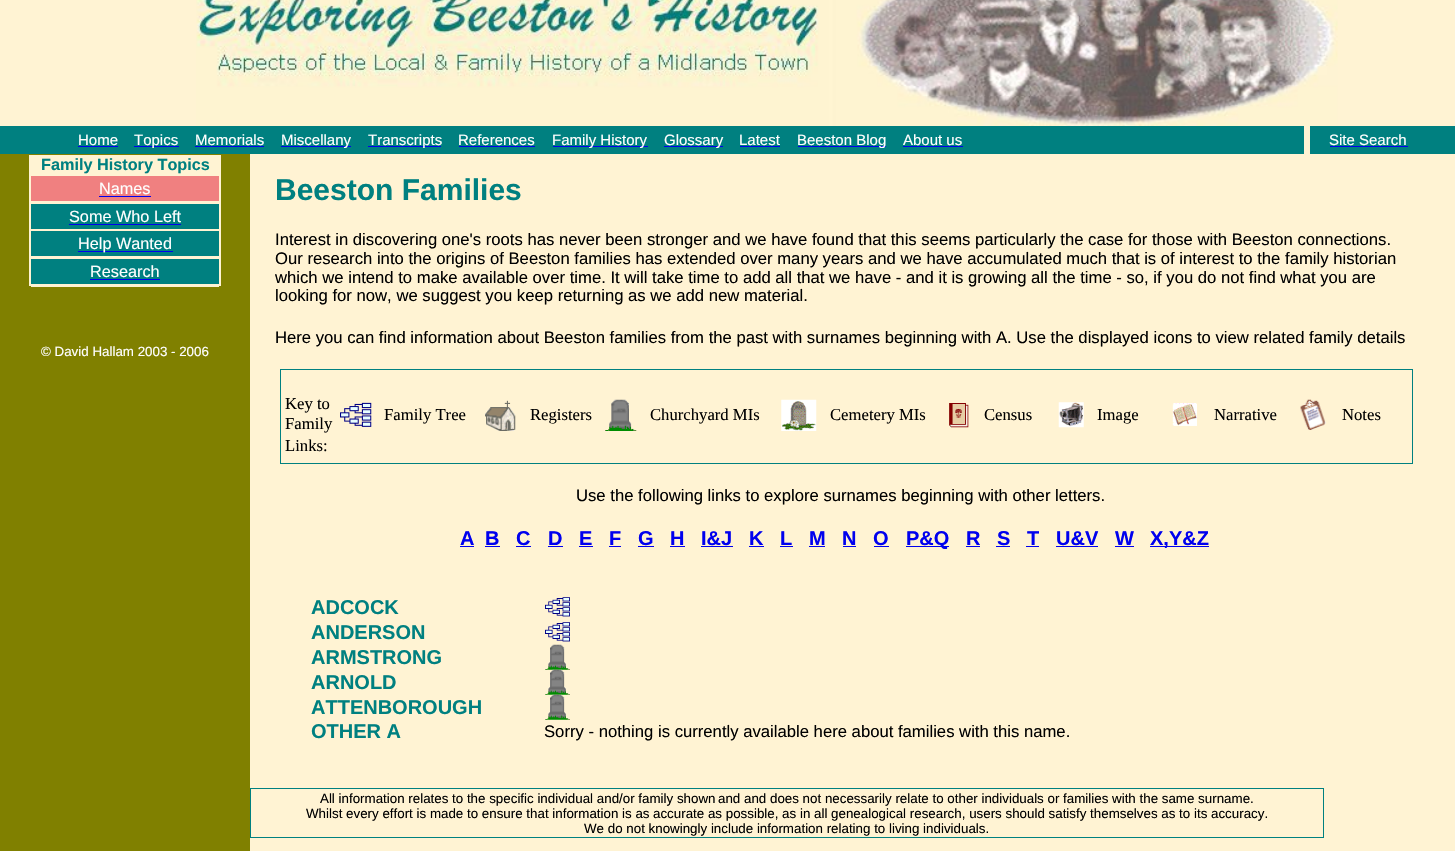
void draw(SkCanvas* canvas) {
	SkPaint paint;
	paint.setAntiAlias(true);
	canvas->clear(0xfffff3d3);
	canvas->drawImageRect(SkImages::DeferredFromEncodedData(SkData::MakeFromFileName("img1.png")), SkRect::MakeXYWH(196, 0, 1142, 126), SkSamplingOptions());
	paint.setColor(0xff008080);
	canvas->drawRect(SkRect::MakeXYWH(0, 126, 1304, 28), paint);
	canvas->drawRect(SkRect::MakeXYWH(1310, 126, 145, 28), paint);
	SkFont f1(fontMgr->matchFamilyStyle("Liberation Sans", SkFontStyle::Normal()), 15);
	f1.setSubpixel(true);
	paint.setColor(0xffffffff);
	canvas->drawString("Home", 78, 145, f1, paint);
	paint.setColor(0xff0000ee);
	canvas->drawRect(SkRect::MakeXYWH(78, 146, 40, 1), paint);
	canvas->drawRect(SkRect::MakeXYWH(134, 146, 45, 1), paint);
	paint.setColor(0xffffffff);
	canvas->drawString("Topics", 134, 145, f1, paint);
	canvas->drawString("Memorials", 195, 145, f1, paint);
	paint.setColor(0xff0000ee);
	canvas->drawRect(SkRect::MakeXYWH(195, 146, 69, 1), paint);
	canvas->drawRect(SkRect::MakeXYWH(281, 146, 70, 1), paint);
	paint.setColor(0xffffffff);
	canvas->drawString("Miscellany", 281, 145, f1, paint);
	paint.setColor(0xff0000ee);
	canvas->drawRect(SkRect::MakeXYWH(368, 146, 73, 1), paint);
	paint.setColor(0xffffffff);
	canvas->drawString("Transcripts", 368, 145, f1, paint);
	canvas->drawString("References", 458, 145, f1, paint);
	paint.setColor(0xff0000ee);
	canvas->drawRect(SkRect::MakeXYWH(459, 146, 76, 1), paint);
	canvas->drawRect(SkRect::MakeXYWH(553, 146, 95, 1), paint);
	paint.setColor(0xffffffff);
	canvas->drawString("Family History", 552, 145, f1, paint);
	paint.setColor(0xff0000ee);
	canvas->drawRect(SkRect::MakeXYWH(664, 146, 59, 1), paint);
	paint.setColor(0xffffffff);
	canvas->drawString("Glossary", 664, 145, f1, paint);
	canvas->drawString("Latest", 739, 145, f1, paint);
	paint.setColor(0xff0000ee);
	canvas->drawRect(SkRect::MakeXYWH(740, 146, 40, 1), paint);
	canvas->drawRect(SkRect::MakeXYWH(798, 146, 88, 1), paint);
	paint.setColor(0xffffffff);
	canvas->drawString("Beeston Blog", 797, 145, f1, paint);
	canvas->drawString("About us", 903, 145, f1, paint);
	paint.setColor(0xff0000ee);
	canvas->drawRect(SkRect::MakeXYWH(903, 146, 60, 1), paint);
	paint.setColor(0xffffffff);
	canvas->drawString("Site Search", 1329, 145, f1, paint);
	paint.setColor(0xff0000ee);
	canvas->drawRect(SkRect::MakeXYWH(1330, 146, 78, 1), paint);
	paint.setColor(0xff808000);
	canvas->drawRect(SkRect::MakeXYWH(0, 154, 250, 697), paint);
	paint.setColor(0xfffff3d3);
	canvas->drawRect(SkRect::MakeXYWH(29, 155, 192, 131), paint);
	SkFont f2(fontMgr->matchFamilyStyle("Liberation Sans", SkFontStyle::Bold()), 16.25);
	f2.setSubpixel(true);
	paint.setColor(0xff008080);
	canvas->drawString("Family History Topics", 41, 170, f2, paint);
	paint.setColor(0xfff08080);
	canvas->drawRect(SkRect::MakeXYWH(31, 176, 188, 25), paint);
	SkFont f3(fontMgr->matchFamilyStyle("Liberation Sans", SkFontStyle::Normal()), 16.25);
	f3.setSubpixel(true);
	paint.setColor(0xffffffff);
	canvas->drawString("Names", 99, 194, f3, paint);
	paint.setColor(0xff0000ee);
	canvas->drawRect(SkRect::MakeXYWH(99, 196, 52, 1), paint);
	paint.setColor(0xff008080);
	canvas->drawRect(SkRect::MakeXYWH(31, 204, 188, 25), paint);
	paint.setColor(0xffffffff);
	canvas->drawString("Some Who Left", 69, 222, f3, paint);
	paint.setColor(0xff0000ee);
	canvas->drawRect(SkRect::MakeXYWH(69, 224, 112, 1), paint);
	paint.setColor(0xff008080);
	canvas->drawRect(SkRect::MakeXYWH(31, 231, 188, 25), paint);
	paint.setColor(0xff0000ee);
	canvas->drawRect(SkRect::MakeXYWH(78, 251, 95, 1), paint);
	paint.setColor(0xffffffff);
	canvas->drawString("Help Wanted", 78, 249, f3, paint);
	paint.setColor(0xff008080);
	canvas->drawRect(SkRect::MakeXYWH(31, 259, 188, 25), paint);
	paint.setColor(0xffffffff);
	canvas->drawString("Research", 90, 277, f3, paint);
	paint.setColor(0xff0000ee);
	canvas->drawRect(SkRect::MakeXYWH(90, 279, 70, 1), paint);
	paint.setColor(0xfffff3d3);
	canvas->drawRect(SkRect::MakeXYWH(31, 286, 188, 1), paint);
	SkFont f4(fontMgr->matchFamilyStyle("Liberation Sans", SkFontStyle::Normal()), 13.35);
	f4.setSubpixel(true);
	paint.setColor(0xffffffff);
	canvas->drawString("© David Hallam 2003 - 2006", 41, 356, f4, paint);
	SkFont f5(fontMgr->matchFamilyStyle("Liberation Sans", SkFontStyle::Bold()), 30);
	f5.setSubpixel(true);
	paint.setColor(0xff008080);
	canvas->drawString("Beeston Families", 275, 200, f5, paint);
	SkFont f6(fontMgr->matchFamilyStyle("Liberation Sans", SkFontStyle::Normal()), 16.67);
	f6.setSubpixel(true);
	paint.setColor(0xff000000);
	canvas->drawString("Interest in discovering one's roots has never been stronger and we have found that this seems particularly the case for those with Beeston connections.", 275, 245, f6, paint);
	canvas->drawString("Our research into the origins of Beeston families has extended over many years and we have accumulated much that is of interest to the family historian", 275, 264, f6, paint);
	canvas->drawString("which we intend to make available over time. It will take time to add all that we have - and it is growing all the time - so, if you do not find what you are", 275, 283, f6, paint);
	canvas->drawString("looking for now, we suggest you keep returning as we add new material.", 275, 301, f6, paint);
	canvas->drawString("Here you can find information about Beeston families from the past with surnames beginning with A. Use the displayed icons to view related family details", 275, 343, f6, paint);
	paint.setStroke(true);
	paint.setStrokeWidth(1);
	paint.setColor(0xff008080);
	canvas->drawRect(SkRect::MakeXYWH(280.5, 369.5, 1132, 94), paint);
	SkFont f7(fontMgr->matchFamilyStyle("Liberation Serif", SkFontStyle::Normal()), 16.67);
	f7.setSubpixel(true);
	paint.setStroke(false);
	paint.setColor(0xff000000);
	canvas->drawString("Key to", 285, 409, f7, paint);
	canvas->drawString("Family", 285, 429, f7, paint);
	canvas->drawString("Links:", 285, 451, f7, paint);
	canvas->drawImageRect(SkImages::DeferredFromEncodedData(SkData::MakeFromFileName("img2.png")), SkRect::MakeXYWH(340, 402, 32, 25), SkSamplingOptions());
	canvas->drawString("Family Tree", 384, 420, f7, paint);
	canvas->drawImageRect(SkImages::DeferredFromEncodedData(SkData::MakeFromFileName("img3.png")), SkRect::MakeXYWH(485, 400, 31, 31), SkSamplingOptions());
	canvas->drawString("Registers", 530, 420, f7, paint);
	canvas->drawImageRect(SkImages::DeferredFromEncodedData(SkData::MakeFromFileName("img4.png")), SkRect::MakeXYWH(605, 399, 32, 32), SkSamplingOptions());
	canvas->drawString("Churchyard MIs", 650, 420, f7, paint);
	canvas->drawImageRect(SkImages::DeferredFromEncodedData(SkData::MakeFromFileName("img5.png")), SkRect::MakeXYWH(781, 399, 36, 32), SkSamplingOptions());
	canvas->drawString("Cemetery MIs", 830, 420, f7, paint);
	canvas->drawImageRect(SkImages::DeferredFromEncodedData(SkData::MakeFromFileName("img6.png")), SkRect::MakeXYWH(949, 403, 20, 25), SkSamplingOptions());
	canvas->drawString("Census", 984, 420, f7, paint);
	canvas->drawImageRect(SkImages::DeferredFromEncodedData(SkData::MakeFromFileName("img7.png")), SkRect::MakeXYWH(1058, 402, 26, 26), SkSamplingOptions());
	canvas->drawString("Image", 1097, 420, f7, paint);
	canvas->drawImageRect(SkImages::DeferredFromEncodedData(SkData::MakeFromFileName("img8.png")), SkRect::MakeXYWH(1172, 403, 25, 23), SkSamplingOptions());
	canvas->drawString("Narrative", 1214, 420, f7, paint);
	canvas->drawImageRect(SkImages::DeferredFromEncodedData(SkData::MakeFromFileName("img9.png")), SkRect::MakeXYWH(1300, 399, 26, 31), SkSamplingOptions());
	canvas->drawString("Notes", 1342, 420, f7, paint);
	canvas->drawString("Use the following links to explore surnames beginning with other letters.", 576, 501, f6, paint);
	SkFont f8(fontMgr->matchFamilyStyle("Liberation Sans", SkFontStyle::Bold()), 20);
	f8.setSubpixel(true);
	paint.setColor(0xff0000ee);
	canvas->drawString("A", 460, 545, f8, paint);
	canvas->drawRect(SkRect::MakeXYWH(460, 546, 14, 1), paint);
	canvas->drawString("B", 485, 545, f8, paint);
	canvas->drawRect(SkRect::MakeXYWH(485, 546, 15, 1), paint);
	canvas->drawString("C", 516, 545, f8, paint);
	canvas->drawRect(SkRect::MakeXYWH(516, 546, 15, 1), paint);
	canvas->drawString("D", 548, 545, f8, paint);
	canvas->drawRect(SkRect::MakeXYWH(548, 546, 15, 1), paint);
	canvas->drawString("E", 579, 545, f8, paint);
	canvas->drawRect(SkRect::MakeXYWH(579, 546, 14, 1), paint);
	canvas->drawString("F", 609, 545, f8, paint);
	canvas->drawRect(SkRect::MakeXYWH(609, 546, 12, 1), paint);
	canvas->drawString("G", 638, 545, f8, paint);
	canvas->drawRect(SkRect::MakeXYWH(638, 546, 16, 1), paint);
	canvas->drawString("H", 670, 545, f8, paint);
	canvas->drawRect(SkRect::MakeXYWH(670, 546, 15, 1), paint);
	canvas->drawString("I&J", 701, 545, f8, paint);
	canvas->drawRect(SkRect::MakeXYWH(701, 546, 32, 1), paint);
	canvas->drawString("K", 749, 545, f8, paint);
	canvas->drawRect(SkRect::MakeXYWH(749, 546, 15, 1), paint);
	canvas->drawString("L", 780, 545, f8, paint);
	canvas->drawRect(SkRect::MakeXYWH(780, 546, 13, 1), paint);
	canvas->drawString("M", 809, 545, f8, paint);
	canvas->drawRect(SkRect::MakeXYWH(809, 546, 16, 1), paint);
	canvas->drawString("N", 842, 545, f8, paint);
	canvas->drawRect(SkRect::MakeXYWH(843, 546, 13, 1), paint);
	canvas->drawString("O", 873, 545, f8, paint);
	canvas->drawRect(SkRect::MakeXYWH(874, 546, 15, 1), paint);
	canvas->drawRect(SkRect::MakeXYWH(906, 546, 43, 1), paint);
	canvas->drawString("P&Q", 906, 545, f8, paint);
	canvas->drawString("R", 966, 545, f8, paint);
	canvas->drawRect(SkRect::MakeXYWH(966, 546, 14, 1), paint);
	canvas->drawString("S", 997, 545, f8, paint);
	canvas->drawRect(SkRect::MakeXYWH(996, 546, 14, 1), paint);
	canvas->drawString("T", 1027, 545, f8, paint);
	canvas->drawRect(SkRect::MakeXYWH(1026, 546, 13, 1), paint);
	canvas->drawString("U&V", 1056, 545, f8, paint);
	canvas->drawRect(SkRect::MakeXYWH(1056, 546, 42, 1), paint);
	canvas->drawString("W", 1115, 545, f8, paint);
	canvas->drawRect(SkRect::MakeXYWH(1115, 546, 19, 1), paint);
	canvas->drawRect(SkRect::MakeXYWH(1150, 546, 59, 1), paint);
	canvas->drawString("X,Y&Z", 1150, 545, f8, paint);
	paint.setColor(0xff008080);
	canvas->drawString("ADCOCK", 311, 614, f8, paint);
	canvas->drawImageRect(SkImages::DeferredFromEncodedData(SkData::MakeFromFileName("img10.png")), SkRect::MakeXYWH(545, 597, 25, 20), SkSamplingOptions());
	canvas->drawString("ANDERSON", 311, 639, f8, paint);
	canvas->drawImageRect(SkImages::DeferredFromEncodedData(SkData::MakeFromFileName("img10.png")), SkRect::MakeXYWH(545, 622, 25, 20), SkSamplingOptions());
	canvas->drawString("ARMSTRONG", 311, 664, f8, paint);
	canvas->drawImageRect(SkImages::DeferredFromEncodedData(SkData::MakeFromFileName("img11.png")), SkRect::MakeXYWH(545, 644, 25, 26), SkSamplingOptions());
	canvas->drawString("ARNOLD", 311, 689, f8, paint);
	canvas->drawImageRect(SkImages::DeferredFromEncodedData(SkData::MakeFromFileName("img12.png")), SkRect::MakeXYWH(545, 669, 25, 26), SkSamplingOptions());
	canvas->drawString("ATTENBOROUGH", 311, 714, f8, paint);
	canvas->drawImageRect(SkImages::DeferredFromEncodedData(SkData::MakeFromFileName("img13.png")), SkRect::MakeXYWH(545, 694, 25, 26), SkSamplingOptions());
	canvas->drawString("OTHER A", 311, 738, f8, paint);
	paint.setColor(0xff000000);
	canvas->drawString("Sorry - nothing is currently available here about families with this name.", 544, 737, f6, paint);
	paint.setStroke(true);
	paint.setColor(0xff008080);
	canvas->drawRect(SkRect::MakeXYWH(250.5, 788.5, 1073, 49), paint);
	paint.setStroke(false);
	paint.setColor(0xff000000);
	canvas->drawString("All information relates to the specific individual and/or family shown", 320, 803, f4, paint);
	canvas->drawString("and and does not necessarily relate to other individuals or families with the same surname.", 718, 803, f4, paint);
	canvas->drawString("Whilst every effort is made to ensure that information is as", 306, 818, f4, paint);
	canvas->drawString("accurate as possible, as in all genealogical research, users should satisfy themselves as to its accuracy.", 653, 818, f4, paint);
	canvas->drawString("We do not knowingly include information relating to living individuals.", 584, 833, f4, paint);
}
